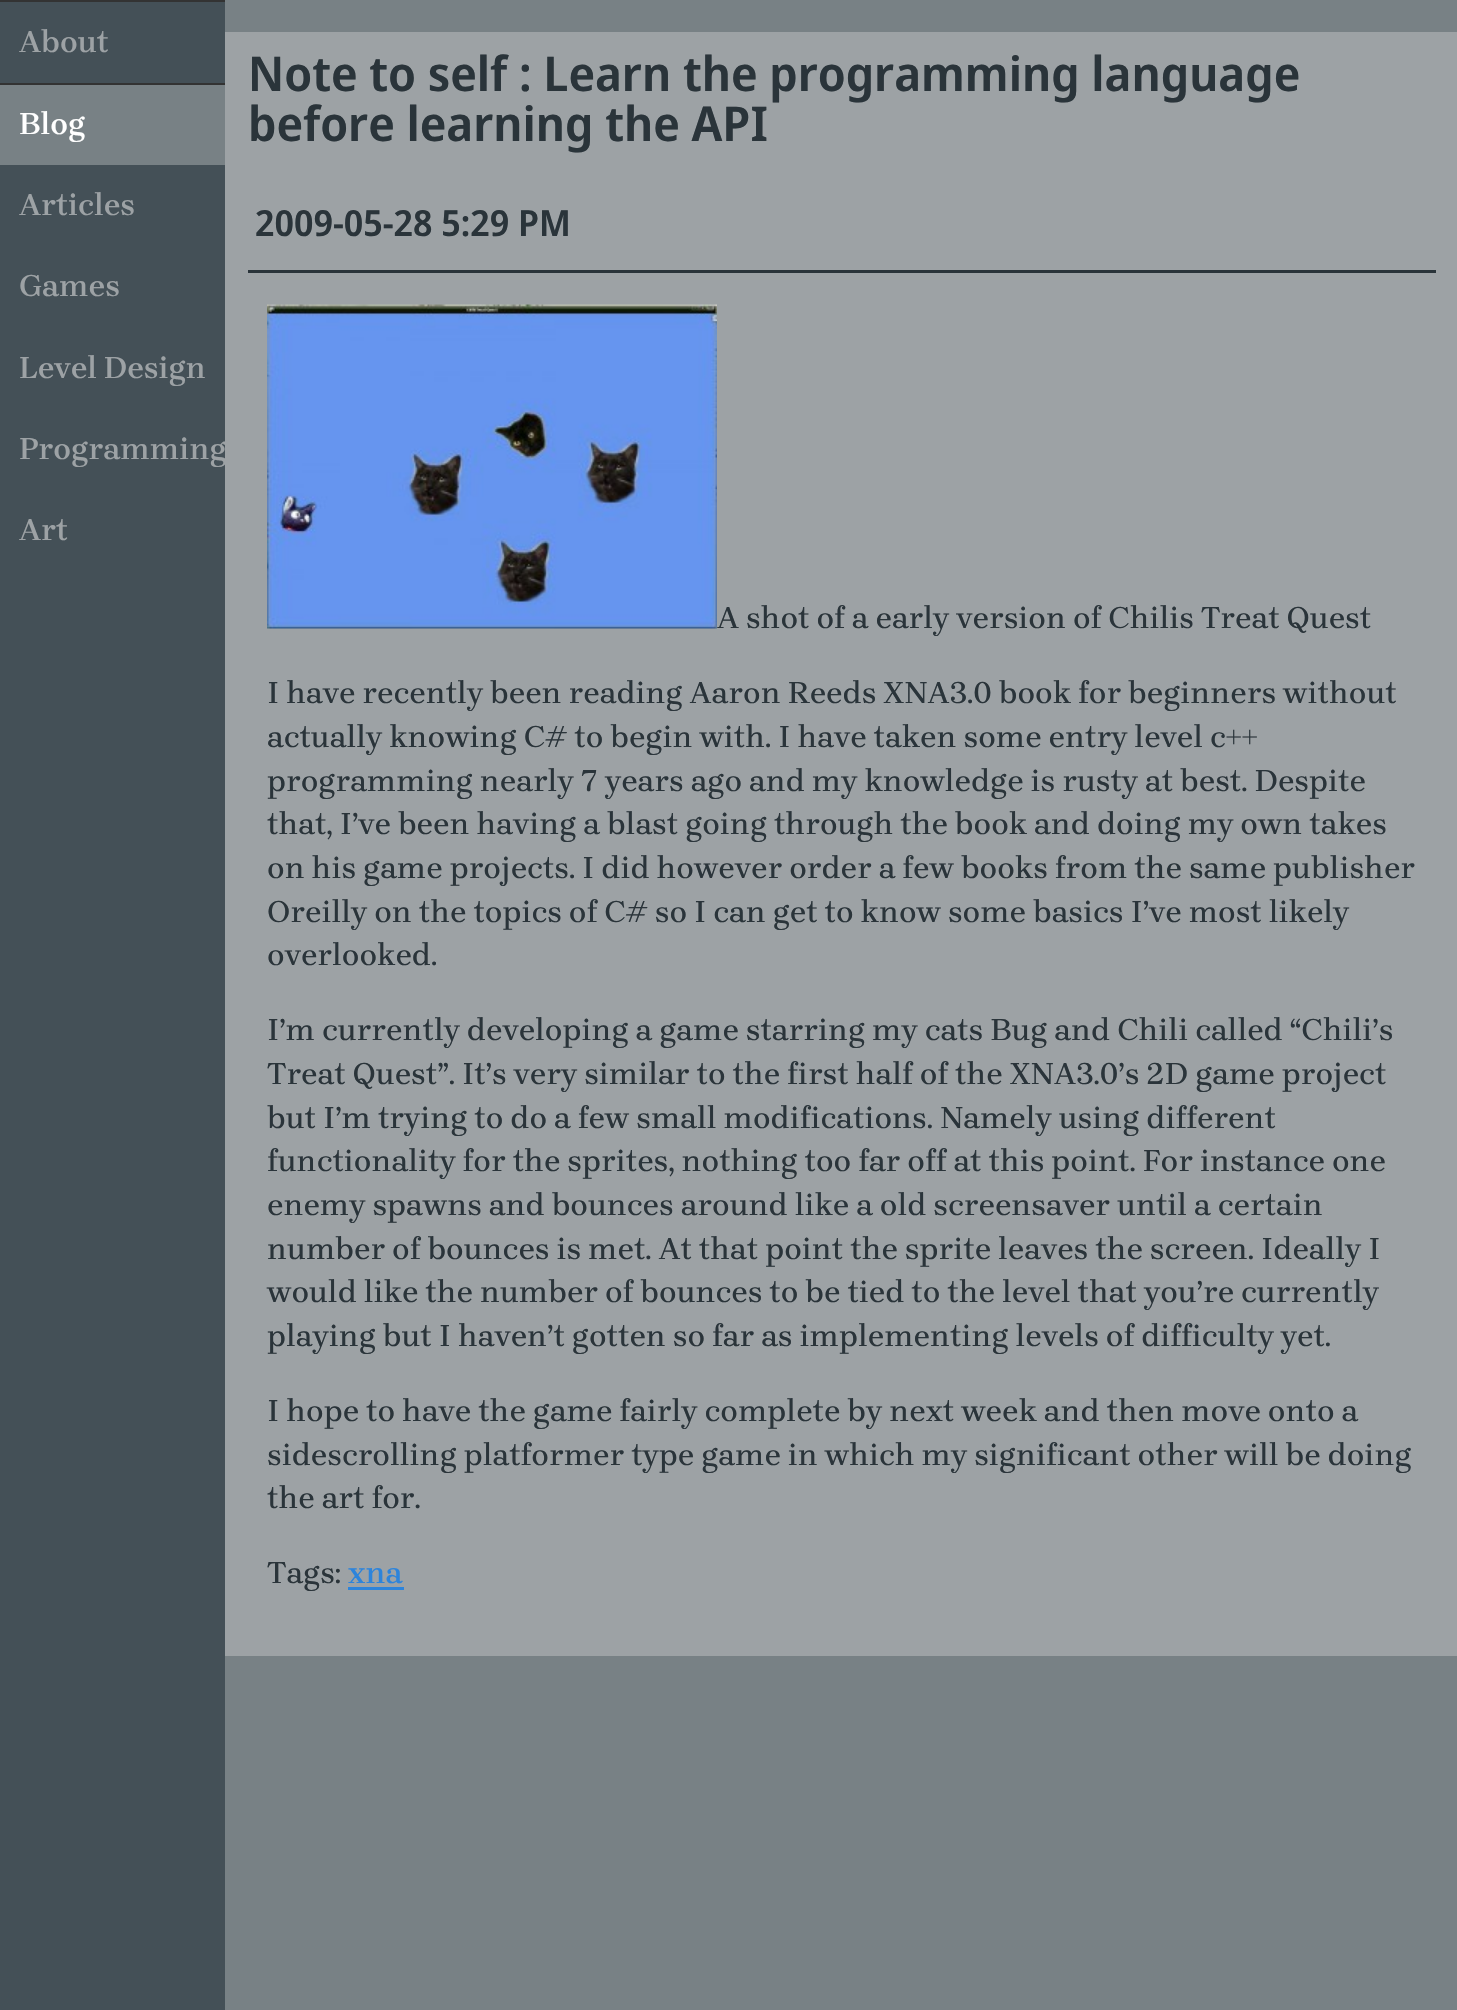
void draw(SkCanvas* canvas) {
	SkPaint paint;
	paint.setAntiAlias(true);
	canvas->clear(0xff788185);
	paint.setColor(0xff445057);
	canvas->drawRect(SkRect::MakeXYWH(0, 2, 225, 2008), paint);
	paint.setColor(0xff333333);
	canvas->drawRect(SkRect::MakeXYWH(0, 0, 225, 2), paint);
	SkFont f1(fontMgr->matchFamilyStyle("Brygada 1918", SkFontStyle(600, SkFontStyle::kNormal_Width, SkFontStyle::kUpright_Slant)), 31.2);
	f1.setSubpixel(true);
	paint.setColor(0xff9da2a5);
	canvas->drawString("About", 19, 52, f1, paint);
	paint.setColor(0xff788185);
	canvas->drawRect(SkRect::MakeXYWH(0, 85, 225, 80), paint);
	paint.setColor(0xff333333);
	canvas->drawRect(SkRect::MakeXYWH(0, 83, 225, 2), paint);
	paint.setColor(0xffffffff);
	canvas->drawString("Blog", 19, 134, f1, paint);
	paint.setColor(0xff9da2a5);
	canvas->drawString("Articles", 19, 215, f1, paint);
	canvas->drawString("Games", 19, 296, f1, paint);
	canvas->drawString("Level Design", 19, 378, f1, paint);
	canvas->save();
	canvas->clipRect(SkRect::MakeXYWH(0, 0, 225, 2010));
	canvas->drawString("Programming", 19, 459, f1, paint);
	canvas->restore();
	canvas->drawString("Art", 19, 540, f1, paint);
	canvas->drawRect(SkRect::MakeXYWH(225, 32, 1232, 1624), paint);
	SkFont f2(fontMgr->matchFamilyStyle("Noto Sans Display", SkFontStyle(600, SkFontStyle::kNormal_Width, SkFontStyle::kUpright_Slant)), 48);
	f2.setSubpixel(true);
	paint.setColor(0xff2a343a);
	canvas->drawString("Note to self : Learn the programming language", 248, 91, f2, paint);
	canvas->drawString("before learning the API", 248, 141, f2, paint);
	SkFont f3(fontMgr->matchFamilyStyle("Noto Sans Display", SkFontStyle(600, SkFontStyle::kNormal_Width, SkFontStyle::kUpright_Slant)), 36);
	f3.setSubpixel(true);
	canvas->drawString("2009-05-28 5:29 PM", 255, 236, f3, paint);
	canvas->drawRect(SkRect::MakeXYWH(248, 270, 1188, 3), paint);
	canvas->drawImageRect(SkImages::DeferredFromEncodedData(SkData::MakeFromFileName("img1.png")), SkRect::MakeXYWH(267, 304, 450, 325), SkSamplingOptions());
	SkFont f4(fontMgr->matchFamilyStyle("Brygada 1918", SkFontStyle(500, SkFontStyle::kNormal_Width, SkFontStyle::kUpright_Slant)), 31.2);
	f4.setSubpixel(true);
	canvas->drawString("A shot of a early version of Chilis Treat Quest", 717, 628, f4, paint);
	canvas->drawString("I have recently been reading Aaron Reeds XNA3.0 book for beginners without", 267, 703, f4, paint);
	canvas->drawString("actually knowing C# to begin with. I have taken some entry level c++", 267, 747, f4, paint);
	canvas->drawString("programming nearly 7 years ago and my knowledge is rusty at best. Despite", 267, 791, f4, paint);
	canvas->drawString("that, I’ve been having a blast going through the book and doing my own takes", 267, 834, f4, paint);
	canvas->drawString("on his game projects. I did however order a few books from the same publisher", 267, 878, f4, paint);
	canvas->drawString("Oreilly on the topics of C# so I can get to know some basics I’ve most likely", 267, 922, f4, paint);
	canvas->drawString("overlooked.", 267, 965, f4, paint);
	canvas->drawString("I’m currently developing a game starring my cats Bug and Chili called “Chili’s", 267, 1040, f4, paint);
	canvas->drawString("Treat Quest”. It’s very similar to the first half of the XNA3.0’s 2D game project", 267, 1084, f4, paint);
	canvas->drawString("but I’m trying to do a few small modifications. Namely using different", 267, 1128, f4, paint);
	canvas->drawString("functionality for the sprites, nothing too far off at this point. For instance one", 267, 1171, f4, paint);
	canvas->drawString("enemy spawns and bounces around like a old screensaver until a certain", 267, 1215, f4, paint);
	canvas->drawString("number of bounces is met. At that point the sprite leaves the screen. Ideally I", 267, 1259, f4, paint);
	canvas->drawString("would like the number of bounces to be tied to the level that you’re currently", 267, 1302, f4, paint);
	canvas->drawString("playing but I haven’t gotten so far as implementing levels of difficulty yet.", 267, 1346, f4, paint);
	canvas->drawString("I hope to have the game fairly complete by next week and then move onto a", 267, 1421, f4, paint);
	canvas->drawString("sidescrolling platformer type game in which my significant other will be doing", 267, 1465, f4, paint);
	canvas->drawString("the art for.", 267, 1508, f4, paint);
	canvas->drawString("Tags:", 267, 1583, f4, paint);
	paint.setColor(0xff2d84db);
	canvas->drawString("xna", 348, 1583, f1, paint);
	canvas->drawRect(SkRect::MakeXYWH(348, 1587, 56, 3), paint);
}
